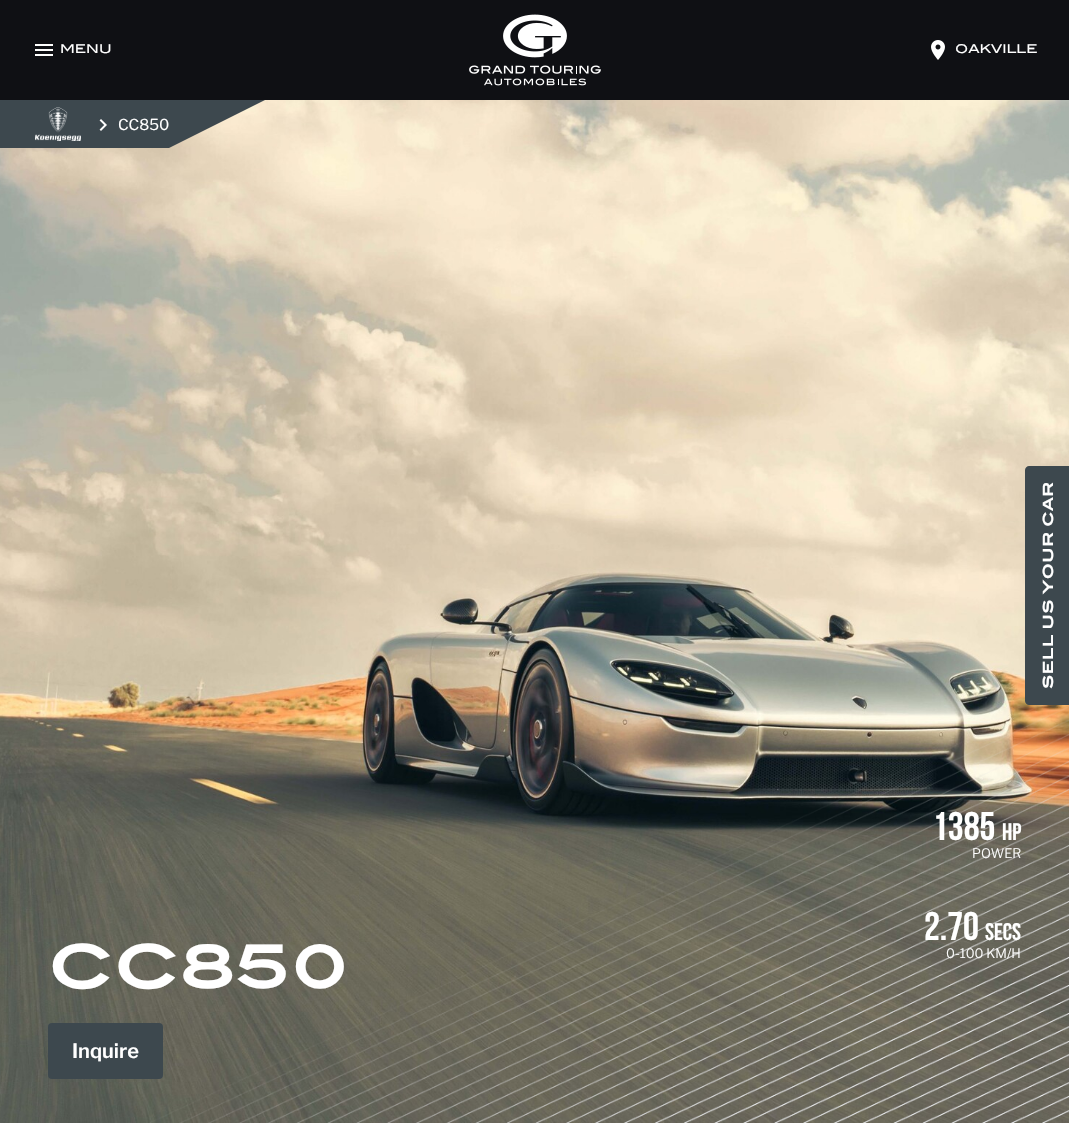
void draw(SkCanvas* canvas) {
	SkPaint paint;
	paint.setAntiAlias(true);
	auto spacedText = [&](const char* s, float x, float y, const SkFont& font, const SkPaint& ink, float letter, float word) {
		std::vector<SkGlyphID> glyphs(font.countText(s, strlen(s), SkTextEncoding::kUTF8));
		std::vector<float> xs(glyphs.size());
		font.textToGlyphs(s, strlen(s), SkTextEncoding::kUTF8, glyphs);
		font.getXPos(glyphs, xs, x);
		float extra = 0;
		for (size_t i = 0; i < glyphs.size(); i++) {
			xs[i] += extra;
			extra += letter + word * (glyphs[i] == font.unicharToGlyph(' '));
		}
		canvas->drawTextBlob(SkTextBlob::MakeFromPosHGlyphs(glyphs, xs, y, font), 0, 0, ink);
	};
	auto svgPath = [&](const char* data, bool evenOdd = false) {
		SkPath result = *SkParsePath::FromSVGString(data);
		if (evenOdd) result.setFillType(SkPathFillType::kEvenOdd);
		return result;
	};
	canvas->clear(0xffffffff);
	paint.setColor(0xff0f1014);
	canvas->drawRect(SkRect::MakeXYWH(0, 0, 1069, 100), paint);
	canvas->drawImageRect(SkImages::DeferredFromEncodedData(SkData::MakeFromFileName("img1.png")), SkRect::MakeXYWH(35, 44, 18, 12), SkSamplingOptions());
	SkFont f1(fontMgr->matchFamilyStyle("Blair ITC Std", SkFontStyle(500, SkFontStyle::kNormal_Width, SkFontStyle::kUpright_Slant)), 12);
	f1.setSubpixel(true);
	paint.setColor(0xffffffff);
	canvas->drawString("MENU", 60, 53, f1, paint);
	canvas->drawImageRect(SkImages::DeferredFromEncodedData(SkData::MakeFromFileName("img2.png")), SkRect::MakeXYWH(469, 14, 132, 72), SkSamplingOptions());
	canvas->drawImageRect(SkImages::DeferredFromEncodedData(SkData::MakeFromFileName("img3.png")), SkRect::MakeXYWH(931, 40, 14, 20), SkSamplingOptions());
	canvas->drawString("OAKVILLE", 955, 53, f1, paint);
	canvas->drawImageRect(SkImages::DeferredFromEncodedData(SkData::MakeFromFileName("img6.png")), SkRect::MakeXYWH(0, 100, 1069, 1023), SkSamplingOptions());
	paint.setColor(0xff3d484e);
	canvas->drawPath(svgPath("M0 100V148H169L265 100Z"), paint);
	canvas->drawImageRect(SkImages::DeferredFromEncodedData(SkData::MakeFromFileName("img4.png")), SkRect::MakeXYWH(35, 107, 46, 34), SkSamplingOptions());
	canvas->drawImageRect(SkImages::DeferredFromEncodedData(SkData::MakeFromFileName("img5.png")), SkRect::MakeXYWH(99, 119, 8, 12), SkSamplingOptions());
	SkFont f2(fontMgr->matchFamilyStyle("Libre Franklin", SkFontStyle::Normal()), 15);
	f2.setSubpixel(true);
	paint.setColor(0xffffffff);
	canvas->drawString("CC850", 118, 130, f2, paint);
	canvas->drawImageRect(SkImages::DeferredFromEncodedData(SkData::MakeFromFileName("img7.png")), SkRect::MakeXYWH(150, 705, 919, 418), SkSamplingOptions());
	SkFont f3(fontMgr->matchFamilyStyle("Bebas Neue", SkFontStyle::Bold()), 40);
	f3.setSubpixel(true);
	canvas->drawString("1385", 932, 840, f3, paint);
	SkFont f4(fontMgr->matchFamilyStyle("Bebas Neue", SkFontStyle::Bold()), 24);
	f4.setSubpixel(true);
	canvas->drawString("HP", 1002, 840, f4, paint);
	SkFont f5(fontMgr->matchFamilyStyle("Libre Franklin", SkFontStyle(300, SkFontStyle::kNormal_Width, SkFontStyle::kUpright_Slant)), 13);
	f5.setSubpixel(true);
	canvas->drawString("POWER", 972, 858, f5, paint);
	canvas->drawString("2.70", 924, 940, f3, paint);
	canvas->drawString("SECS", 985, 940, f4, paint);
	canvas->drawString("0-100 KM/H", 946, 958, f5, paint);
	SkFont f6(fontMgr->matchFamilyStyle("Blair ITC", SkFontStyle::Bold()), 60);
	f6.setSubpixel(true);
	canvas->drawString("CC850", 48, 988, f6, paint);
	paint.setColor(0xff3d484e);
	canvas->drawRoundRect(SkRect::MakeXYWH(48, 1023, 115, 56), 4, 4, paint);
	SkFont f7(fontMgr->matchFamilyStyle("Libre Franklin", SkFontStyle(600, SkFontStyle::kNormal_Width, SkFontStyle::kUpright_Slant)), 20);
	f7.setSubpixel(true);
	paint.setColor(0xffffffff);
	canvas->drawString("Inquire", 72, 1058, f7, paint);
	paint.setColor(0xff3d484e);
	canvas->drawPath(svgPath("M1025 701V470C1025 468 1027 466 1029 466H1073V705H1029C1027 705 1025 703 1025 701Z"), paint);
	SkFont f8(fontMgr->matchFamilyStyle("Blair ITC", SkFontStyle::Bold()), 14);
	f8.setSubpixel(true);
	paint.setColor(0xffffffff);
	canvas->save();
	canvas->rotate(-90, 1053, 689);
	spacedText("SELL US YOUR CAR", 1053, 689, f8, paint, 0.5, 0);
	canvas->restore();
}
